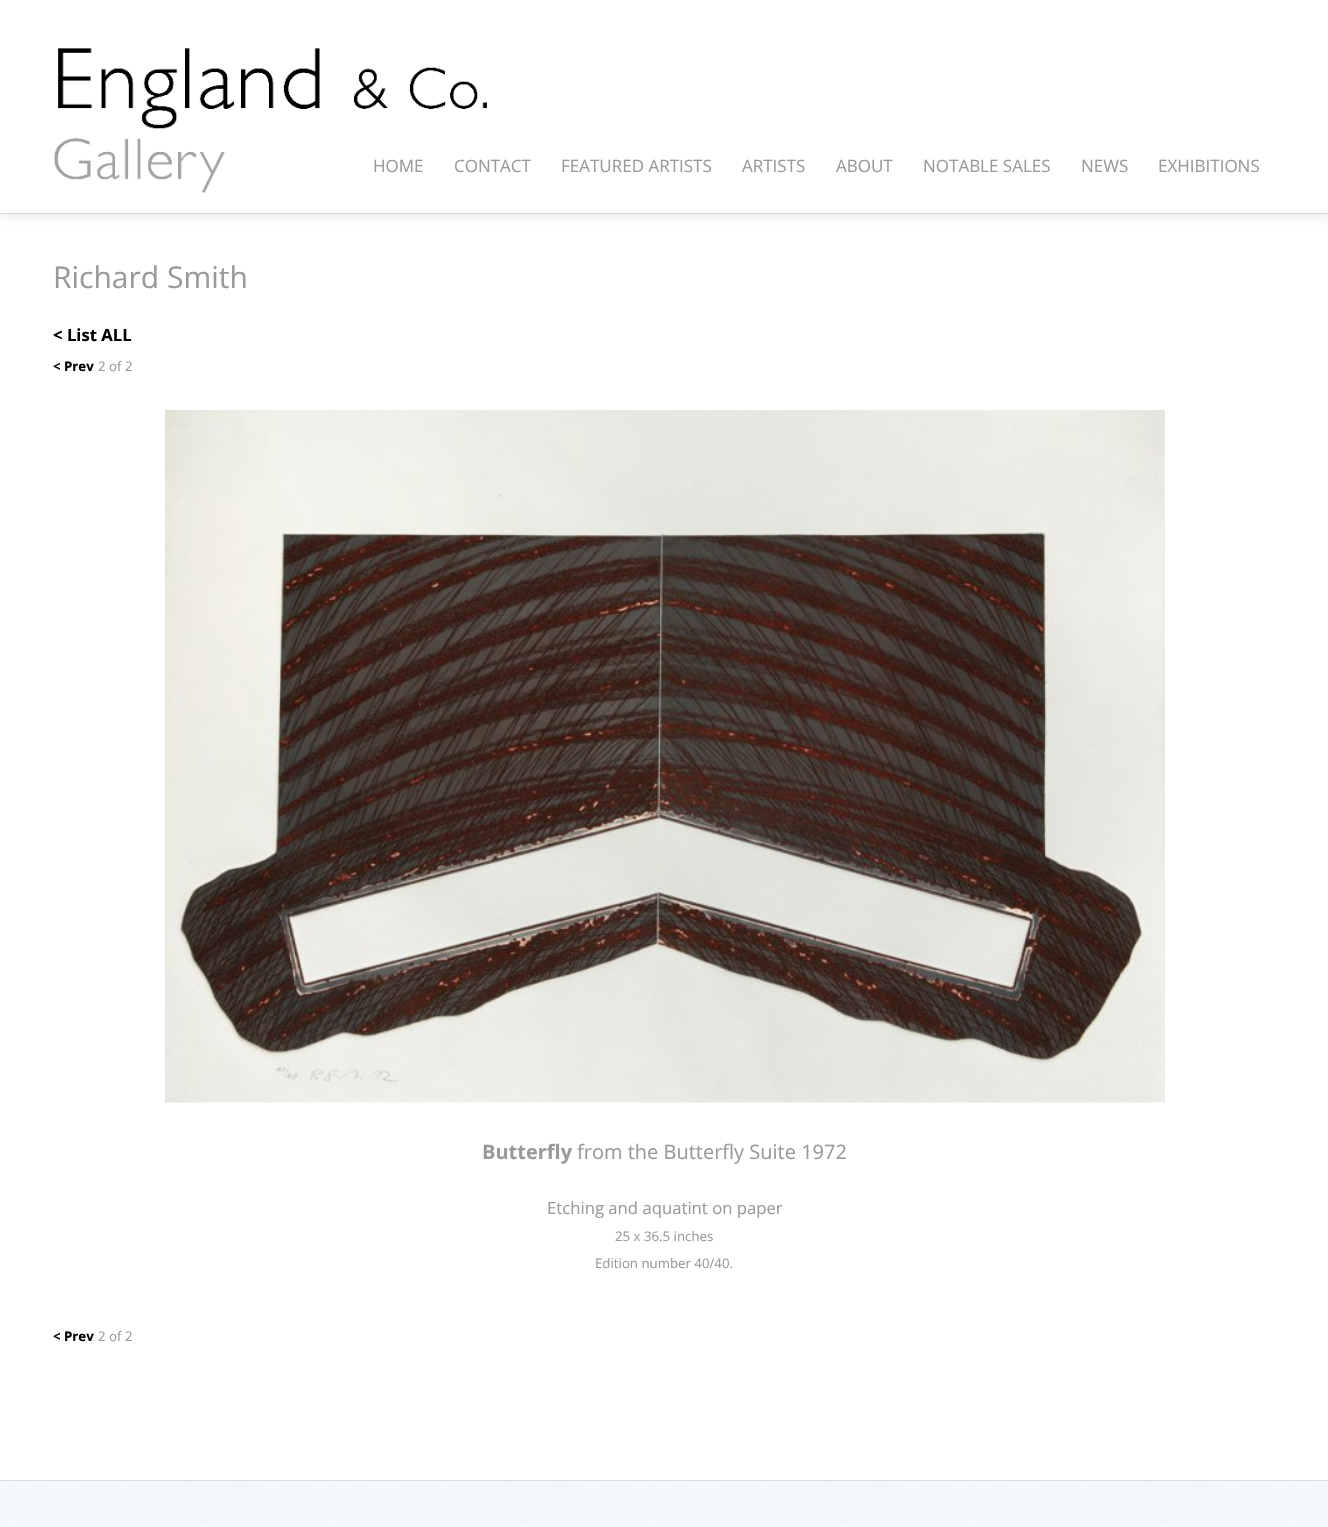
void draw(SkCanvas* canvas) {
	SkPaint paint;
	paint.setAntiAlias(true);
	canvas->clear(0xffffffff);
	paint.setColor(0x1a000000);
	paint.setMaskFilter(SkMaskFilter::MakeBlur(kNormal_SkBlurStyle, 6));
	canvas->drawRect(SkRect::MakeXYWH(0, 3, 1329, 212), paint);
	paint.setMaskFilter(nullptr);
	paint.setStroke(true);
	paint.setStrokeWidth(1);
	canvas->drawRect(SkRect::MakeXYWH(-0.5, -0.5, 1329, 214), paint);
	paint.setStroke(false);
	paint.setColor(0xffffffff);
	canvas->drawRect(SkRect::MakeXYWH(0, 0, 1328, 213), paint);
	canvas->drawImageRect(SkImages::DeferredFromEncodedData(SkData::MakeFromFileName("img1.png")), SkRect::MakeXYWH(53, 48, 434, 145), SkSamplingOptions());
	SkFont f1(fontMgr->matchFamilyStyle("Open Sans", SkFontStyle::Normal()), 17);
	f1.setSubpixel(true);
	paint.setColor(0xff999999);
	canvas->drawString("HOME", 373, 172, f1, paint);
	canvas->drawString("CONTACT", 454, 172, f1, paint);
	canvas->drawString("FEATURED ARTISTS", 561, 172, f1, paint);
	canvas->drawString("ARTISTS", 742, 172, f1, paint);
	canvas->drawString("ABOUT", 836, 172, f1, paint);
	canvas->drawString("NOTABLE SALES", 923, 172, f1, paint);
	canvas->drawString("NEWS", 1081, 172, f1, paint);
	canvas->drawString("EXHIBITIONS", 1158, 172, f1, paint);
	SkFont f2(fontMgr->matchFamilyStyle("Open Sans", SkFontStyle::Normal()), 30);
	f2.setSubpixel(true);
	canvas->drawString("Richard Smith", 53, 288, f2, paint);
	SkFont f3(fontMgr->matchFamilyStyle("Open Sans", SkFontStyle::Bold()), 16.7);
	f3.setSubpixel(true);
	paint.setColor(0xff000000);
	canvas->drawString("< List ALL", 53, 341, f3, paint);
	SkFont f4(fontMgr->matchFamilyStyle("Open Sans", SkFontStyle::Bold()), 13.25);
	f4.setSubpixel(true);
	canvas->drawString("< Prev", 53, 371, f4, paint);
	SkFont f5(fontMgr->matchFamilyStyle("Open Sans", SkFontStyle::Normal()), 13.25);
	f5.setSubpixel(true);
	paint.setColor(0xff999999);
	canvas->drawString("2 of 2", 98, 371, f5, paint);
	canvas->drawImageRect(SkImages::DeferredFromEncodedData(SkData::MakeFromFileName("img2.png")), SkRect::MakeXYWH(165, 410, 1000, 693), SkSamplingOptions());
	SkFont f6(fontMgr->matchFamilyStyle("Open Sans", SkFontStyle::Bold()), 20);
	f6.setSubpixel(true);
	canvas->drawString("Butterfly", 482, 1159, f6, paint);
	SkFont f7(fontMgr->matchFamilyStyle("Open Sans", SkFontStyle::Normal()), 20);
	f7.setSubpixel(true);
	canvas->drawString("from the Butterfly Suite 1972", 577, 1159, f7, paint);
	SkFont f8(fontMgr->matchFamilyStyle("Open Sans", SkFontStyle::Normal()), 16.7);
	f8.setSubpixel(true);
	canvas->drawString("Etching and aquatint on paper", 547, 1214, f8, paint);
	canvas->drawString("25 x 36.5 inches", 615, 1241, f5, paint);
	canvas->drawString("Edition number 40/40.", 595, 1268, f5, paint);
	paint.setColor(0xff000000);
	canvas->drawString("< Prev", 53, 1341, f4, paint);
	paint.setColor(0xff999999);
	canvas->drawString("2 of 2", 98, 1341, f5, paint);
	paint.setColor(0xffedf2f7);
	canvas->drawRect(SkRect::MakeXYWH(0, 1480, 1328, 47), paint);
	canvas->drawImageRect(SkImages::DeferredFromEncodedData(SkData::MakeFromFileName("img3.png")), SkRect::MakeXYWH(0, 1480, 1328, 47), SkSamplingOptions());
	paint.setColor(0x1a000000);
	canvas->drawRect(SkRect::MakeXYWH(0, 1480, 1328, 1), paint);
}
